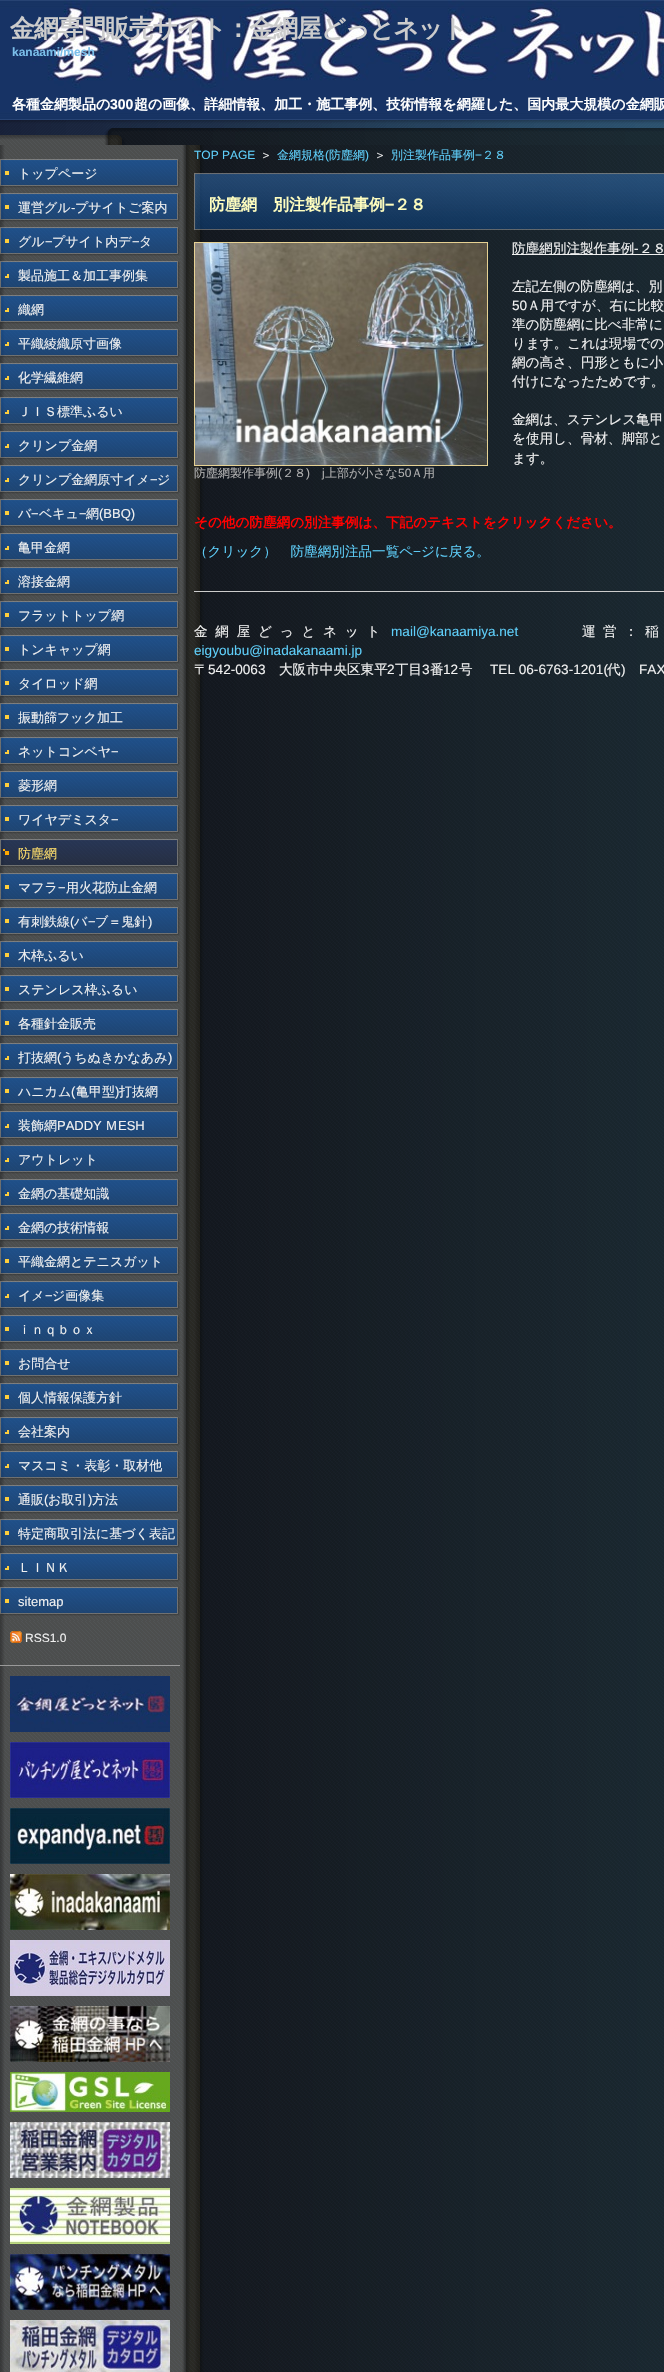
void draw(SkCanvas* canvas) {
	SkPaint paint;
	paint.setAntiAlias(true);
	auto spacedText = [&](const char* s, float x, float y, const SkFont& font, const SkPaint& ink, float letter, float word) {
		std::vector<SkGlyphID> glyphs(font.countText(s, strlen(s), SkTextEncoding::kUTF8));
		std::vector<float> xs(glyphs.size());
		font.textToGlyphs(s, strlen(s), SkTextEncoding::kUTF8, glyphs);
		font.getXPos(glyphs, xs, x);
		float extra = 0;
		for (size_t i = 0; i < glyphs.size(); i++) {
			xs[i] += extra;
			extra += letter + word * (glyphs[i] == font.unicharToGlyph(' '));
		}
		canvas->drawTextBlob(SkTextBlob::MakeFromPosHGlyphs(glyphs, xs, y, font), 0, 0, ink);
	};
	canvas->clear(0xffffffff);
	canvas->drawImageRect(SkImages::DeferredFromEncodedData(SkData::MakeFromFileName("img1.png")), SkRect::MakeXYWH(0, 120, 664, 25), SkSamplingOptions());
	canvas->drawImageRect(SkImages::DeferredFromEncodedData(SkData::MakeFromFileName("img2.png")), SkRect::MakeXYWH(0, 0, 664, 120), SkSamplingOptions());
	SkFont f1(fontMgr->matchFamilyStyle("WenQuanYi Zen Hei", SkFontStyle::Bold()), 25);
	f1.setSubpixel(true);
	paint.setColor(0xffcccccc);
	spacedText("金網専門販売サイト：金網屋どっとネット", 10, 37, f1, paint, -1.25, 0);
	SkFont f2(fontMgr->matchFamilyStyle("Liberation Sans", SkFontStyle::Bold()), 12);
	f2.setSubpixel(true);
	paint.setColor(0xff7bbfea);
	canvas->drawString("kanaami/mesh", 12, 56, f2, paint);
	SkFont f3(fontMgr->matchFamilyStyle("WenQuanYi Zen Hei", SkFontStyle::Bold()), 14);
	f3.setSubpixel(true);
	paint.setColor(0xffffffff);
	canvas->drawString("各種金網製品の", 12, 109, f3, paint);
	SkFont f4(fontMgr->matchFamilyStyle("Liberation Sans", SkFontStyle::Bold()), 14);
	f4.setSubpixel(true);
	canvas->drawString("300", 110, 109, f4, paint);
	canvas->drawString("超の画像、詳細情報、加工・施工事例、技術情報を網羅した、国内最大規模の金網販", 134, 109, f3, paint);
	canvas->drawImageRect(SkImages::DeferredFromEncodedData(SkData::MakeFromFileName("img3.png")), SkRect::MakeXYWH(0, 145, 664, 2227), SkSamplingOptions());
	canvas->drawImageRect(SkImages::DeferredFromEncodedData(SkData::MakeFromFileName("img4.png")), SkRect::MakeXYWH(0, 159, 180, 34), SkSamplingOptions());
	SkFont f5(fontMgr->matchFamilyStyle("WenQuanYi Zen Hei", SkFontStyle(500, SkFontStyle::kNormal_Width, SkFontStyle::kUpright_Slant)), 13);
	f5.setSubpixel(true);
	paint.setColor(0xfff0f0f0);
	canvas->drawString("トップページ", 18, 178, f5, paint);
	canvas->drawImageRect(SkImages::DeferredFromEncodedData(SkData::MakeFromFileName("img5.png")), SkRect::MakeXYWH(0, 193, 180, 29), SkSamplingOptions());
	canvas->drawString("運営グル", 18, 212, f5, paint);
	SkFont f6(fontMgr->matchFamilyStyle("Liberation Sans", SkFontStyle::Normal()), 13);
	f6.setSubpixel(true);
	canvas->drawString("-", 71, 212, f6, paint);
	canvas->drawString("プサイトご案内", 75, 212, f5, paint);
	canvas->drawImageRect(SkImages::DeferredFromEncodedData(SkData::MakeFromFileName("img4.png")), SkRect::MakeXYWH(0, 227, 180, 34), SkSamplingOptions());
	canvas->drawString("グル", 18, 246, f5, paint);
	canvas->drawString("−", 45, 246, f6, paint);
	canvas->drawString("プサイト内デ", 52, 246, f5, paint);
	canvas->drawString("−", 132, 246, f6, paint);
	canvas->drawString("タ", 139, 246, f5, paint);
	canvas->drawImageRect(SkImages::DeferredFromEncodedData(SkData::MakeFromFileName("img6.png")), SkRect::MakeXYWH(0, 261, 180, 34), SkSamplingOptions());
	canvas->drawString("製品施工＆加工事例集", 18, 280, f5, paint);
	canvas->drawImageRect(SkImages::DeferredFromEncodedData(SkData::MakeFromFileName("img7.png")), SkRect::MakeXYWH(0, 295, 180, 30), SkSamplingOptions());
	canvas->drawString("織網", 18, 314, f5, paint);
	canvas->drawImageRect(SkImages::DeferredFromEncodedData(SkData::MakeFromFileName("img6.png")), SkRect::MakeXYWH(0, 329, 180, 34), SkSamplingOptions());
	canvas->drawString("平織綾織原寸画像", 18, 348, f5, paint);
	canvas->drawImageRect(SkImages::DeferredFromEncodedData(SkData::MakeFromFileName("img6.png")), SkRect::MakeXYWH(0, 363, 180, 34), SkSamplingOptions());
	canvas->drawString("化学繊維網", 18, 382, f5, paint);
	canvas->drawImageRect(SkImages::DeferredFromEncodedData(SkData::MakeFromFileName("img8.png")), SkRect::MakeXYWH(0, 397, 180, 29), SkSamplingOptions());
	canvas->drawString("ＪＩＳ標準ふるい", 18, 416, f5, paint);
	canvas->drawImageRect(SkImages::DeferredFromEncodedData(SkData::MakeFromFileName("img6.png")), SkRect::MakeXYWH(0, 431, 180, 34), SkSamplingOptions());
	canvas->drawString("クリンプ金網", 18, 450, f5, paint);
	canvas->drawImageRect(SkImages::DeferredFromEncodedData(SkData::MakeFromFileName("img8.png")), SkRect::MakeXYWH(0, 465, 180, 29), SkSamplingOptions());
	canvas->drawString("クリンプ金網原寸イメ", 18, 484, f5, paint);
	canvas->drawString("−", 150, 484, f6, paint);
	canvas->drawString("ジ", 157, 484, f5, paint);
	canvas->drawImageRect(SkImages::DeferredFromEncodedData(SkData::MakeFromFileName("img5.png")), SkRect::MakeXYWH(0, 499, 180, 29), SkSamplingOptions());
	canvas->drawString("バ", 18, 518, f5, paint);
	canvas->drawString("−", 31, 518, f6, paint);
	canvas->drawString("ベキュ", 39, 518, f5, paint);
	canvas->drawString("−", 79, 518, f6, paint);
	canvas->drawString("網", 86, 518, f5, paint);
	canvas->drawString("(BBQ)", 99, 518, f6, paint);
	canvas->drawImageRect(SkImages::DeferredFromEncodedData(SkData::MakeFromFileName("img8.png")), SkRect::MakeXYWH(0, 533, 180, 29), SkSamplingOptions());
	canvas->drawString("亀甲金網", 18, 552, f5, paint);
	canvas->drawImageRect(SkImages::DeferredFromEncodedData(SkData::MakeFromFileName("img6.png")), SkRect::MakeXYWH(0, 567, 180, 34), SkSamplingOptions());
	canvas->drawString("溶接金網", 18, 586, f5, paint);
	canvas->drawImageRect(SkImages::DeferredFromEncodedData(SkData::MakeFromFileName("img4.png")), SkRect::MakeXYWH(0, 601, 180, 34), SkSamplingOptions());
	canvas->drawString("フラットトップ網", 18, 620, f5, paint);
	canvas->drawImageRect(SkImages::DeferredFromEncodedData(SkData::MakeFromFileName("img9.png")), SkRect::MakeXYWH(0, 635, 180, 32), SkSamplingOptions());
	canvas->drawString("トンキャップ網", 18, 654, f5, paint);
	canvas->drawImageRect(SkImages::DeferredFromEncodedData(SkData::MakeFromFileName("img5.png")), SkRect::MakeXYWH(0, 669, 180, 29), SkSamplingOptions());
	canvas->drawString("タイロッド網", 18, 688, f5, paint);
	canvas->drawImageRect(SkImages::DeferredFromEncodedData(SkData::MakeFromFileName("img4.png")), SkRect::MakeXYWH(0, 703, 180, 34), SkSamplingOptions());
	canvas->drawString("振動篩フック加工", 18, 722, f5, paint);
	canvas->drawImageRect(SkImages::DeferredFromEncodedData(SkData::MakeFromFileName("img6.png")), SkRect::MakeXYWH(0, 737, 180, 34), SkSamplingOptions());
	canvas->drawString("ネットコンベヤ", 18, 756, f5, paint);
	canvas->drawString("−", 111, 756, f6, paint);
	canvas->drawImageRect(SkImages::DeferredFromEncodedData(SkData::MakeFromFileName("img4.png")), SkRect::MakeXYWH(0, 771, 180, 34), SkSamplingOptions());
	canvas->drawString("菱形網", 18, 790, f5, paint);
	canvas->drawImageRect(SkImages::DeferredFromEncodedData(SkData::MakeFromFileName("img5.png")), SkRect::MakeXYWH(0, 805, 180, 29), SkSamplingOptions());
	canvas->drawString("ワイヤデミスタ", 18, 824, f5, paint);
	canvas->drawString("−", 111, 824, f6, paint);
	canvas->drawImageRect(SkImages::DeferredFromEncodedData(SkData::MakeFromFileName("img10.png")), SkRect::MakeXYWH(0, 839, 180, 29), SkSamplingOptions());
	paint.setColor(0xffffde6b);
	canvas->drawString("防塵網", 18, 858, f5, paint);
	canvas->drawImageRect(SkImages::DeferredFromEncodedData(SkData::MakeFromFileName("img5.png")), SkRect::MakeXYWH(0, 873, 180, 29), SkSamplingOptions());
	paint.setColor(0xfff0f0f0);
	canvas->drawString("マフラ", 18, 892, f5, paint);
	canvas->drawString("−", 58, 892, f6, paint);
	canvas->drawString("用火花防止金網", 66, 892, f5, paint);
	canvas->drawImageRect(SkImages::DeferredFromEncodedData(SkData::MakeFromFileName("img4.png")), SkRect::MakeXYWH(0, 907, 180, 34), SkSamplingOptions());
	canvas->drawString("有刺鉄線", 18, 926, f5, paint);
	canvas->drawString("(", 70, 926, f6, paint);
	canvas->drawString("バ", 74, 926, f5, paint);
	canvas->drawString("−", 88, 926, f6, paint);
	canvas->drawString("ブ＝鬼針", 95, 926, f5, paint);
	canvas->drawString(")", 148, 926, f6, paint);
	canvas->drawImageRect(SkImages::DeferredFromEncodedData(SkData::MakeFromFileName("img9.png")), SkRect::MakeXYWH(0, 941, 180, 32), SkSamplingOptions());
	canvas->drawString("木枠ふるい", 18, 960, f5, paint);
	canvas->drawImageRect(SkImages::DeferredFromEncodedData(SkData::MakeFromFileName("img5.png")), SkRect::MakeXYWH(0, 975, 180, 29), SkSamplingOptions());
	canvas->drawString("ステンレス枠ふるい", 18, 994, f5, paint);
	canvas->drawImageRect(SkImages::DeferredFromEncodedData(SkData::MakeFromFileName("img4.png")), SkRect::MakeXYWH(0, 1009, 180, 34), SkSamplingOptions());
	canvas->drawString("各種針金販売", 18, 1028, f5, paint);
	canvas->drawImageRect(SkImages::DeferredFromEncodedData(SkData::MakeFromFileName("img6.png")), SkRect::MakeXYWH(0, 1043, 180, 34), SkSamplingOptions());
	canvas->drawString("打抜網", 18, 1062, f5, paint);
	canvas->drawString("(", 57, 1062, f6, paint);
	canvas->drawString("うちぬきかなあみ", 61, 1062, f5, paint);
	canvas->drawString(")", 168, 1062, f6, paint);
	canvas->drawImageRect(SkImages::DeferredFromEncodedData(SkData::MakeFromFileName("img4.png")), SkRect::MakeXYWH(0, 1077, 180, 34), SkSamplingOptions());
	canvas->drawString("ハニカム", 18, 1096, f5, paint);
	canvas->drawString("(", 71, 1096, f6, paint);
	canvas->drawString("亀甲型", 76, 1096, f5, paint);
	canvas->drawString(")", 115, 1096, f6, paint);
	canvas->drawString("打抜網", 119, 1096, f5, paint);
	canvas->drawImageRect(SkImages::DeferredFromEncodedData(SkData::MakeFromFileName("img6.png")), SkRect::MakeXYWH(0, 1111, 180, 34), SkSamplingOptions());
	canvas->drawString("装飾網", 18, 1130, f5, paint);
	canvas->drawString("PADDY", 57, 1130, f6, paint);
	canvas->drawString("Ｍ", 105, 1130, f5, paint);
	canvas->drawString("ESH", 118, 1130, f6, paint);
	canvas->drawImageRect(SkImages::DeferredFromEncodedData(SkData::MakeFromFileName("img8.png")), SkRect::MakeXYWH(0, 1145, 180, 29), SkSamplingOptions());
	canvas->drawString("アウトレット", 18, 1164, f5, paint);
	canvas->drawImageRect(SkImages::DeferredFromEncodedData(SkData::MakeFromFileName("img6.png")), SkRect::MakeXYWH(0, 1179, 180, 34), SkSamplingOptions());
	canvas->drawString("金網の基礎知識", 18, 1198, f5, paint);
	canvas->drawImageRect(SkImages::DeferredFromEncodedData(SkData::MakeFromFileName("img7.png")), SkRect::MakeXYWH(0, 1213, 180, 30), SkSamplingOptions());
	canvas->drawString("金網の技術情報", 18, 1232, f5, paint);
	canvas->drawImageRect(SkImages::DeferredFromEncodedData(SkData::MakeFromFileName("img9.png")), SkRect::MakeXYWH(0, 1247, 180, 32), SkSamplingOptions());
	canvas->drawString("平織金網とテニスガット", 18, 1266, f5, paint);
	canvas->drawImageRect(SkImages::DeferredFromEncodedData(SkData::MakeFromFileName("img6.png")), SkRect::MakeXYWH(0, 1281, 180, 34), SkSamplingOptions());
	canvas->drawString("イメ", 18, 1300, f5, paint);
	canvas->drawString("−", 45, 1300, f6, paint);
	canvas->drawString("ジ画像集", 52, 1300, f5, paint);
	canvas->drawImageRect(SkImages::DeferredFromEncodedData(SkData::MakeFromFileName("img4.png")), SkRect::MakeXYWH(0, 1315, 180, 34), SkSamplingOptions());
	canvas->drawString("ｉｎｑｂｏｘ", 18, 1334, f5, paint);
	canvas->drawImageRect(SkImages::DeferredFromEncodedData(SkData::MakeFromFileName("img5.png")), SkRect::MakeXYWH(0, 1349, 180, 29), SkSamplingOptions());
	canvas->drawString("お問合せ", 18, 1368, f5, paint);
	canvas->drawImageRect(SkImages::DeferredFromEncodedData(SkData::MakeFromFileName("img4.png")), SkRect::MakeXYWH(0, 1383, 180, 34), SkSamplingOptions());
	canvas->drawString("個人情報保護方針", 18, 1402, f5, paint);
	canvas->drawImageRect(SkImages::DeferredFromEncodedData(SkData::MakeFromFileName("img6.png")), SkRect::MakeXYWH(0, 1417, 180, 34), SkSamplingOptions());
	canvas->drawString("会社案内", 18, 1436, f5, paint);
	canvas->drawImageRect(SkImages::DeferredFromEncodedData(SkData::MakeFromFileName("img8.png")), SkRect::MakeXYWH(0, 1451, 180, 29), SkSamplingOptions());
	canvas->drawString("マスコミ・表彰・取材他", 18, 1470, f5, paint);
	canvas->drawImageRect(SkImages::DeferredFromEncodedData(SkData::MakeFromFileName("img5.png")), SkRect::MakeXYWH(0, 1485, 180, 29), SkSamplingOptions());
	canvas->drawString("通販", 18, 1504, f5, paint);
	canvas->drawString("(", 44, 1504, f6, paint);
	canvas->drawString("お取引", 48, 1504, f5, paint);
	canvas->drawString(")", 88, 1504, f6, paint);
	canvas->drawString("方法", 92, 1504, f5, paint);
	canvas->drawImageRect(SkImages::DeferredFromEncodedData(SkData::MakeFromFileName("img4.png")), SkRect::MakeXYWH(0, 1519, 180, 34), SkSamplingOptions());
	canvas->drawString("特定商取引法に基づく表記", 18, 1538, f5, paint);
	canvas->drawImageRect(SkImages::DeferredFromEncodedData(SkData::MakeFromFileName("img6.png")), SkRect::MakeXYWH(0, 1553, 180, 34), SkSamplingOptions());
	canvas->drawString("ＬＩＮＫ", 18, 1572, f5, paint);
	canvas->drawImageRect(SkImages::DeferredFromEncodedData(SkData::MakeFromFileName("img5.png")), SkRect::MakeXYWH(0, 1587, 180, 29), SkSamplingOptions());
	canvas->drawString("sitemap", 18, 1606, f6, paint);
	canvas->drawImageRect(SkImages::DeferredFromEncodedData(SkData::MakeFromFileName("img11.png")), SkRect::MakeXYWH(10, 1631, 12, 12), SkSamplingOptions());
	SkFont f7(fontMgr->matchFamilyStyle("Liberation Sans", SkFontStyle::Normal()), 12);
	f7.setSubpixel(true);
	canvas->drawString("RSS1.0", 25, 1642, f7, paint);
	paint.setColor(0xff999999);
	canvas->drawRect(SkRect::MakeXYWH(0, 1665, 180, 1), paint);
	canvas->drawImageRect(SkImages::DeferredFromEncodedData(SkData::MakeFromFileName("img12.png")), SkRect::MakeXYWH(10, 1676, 160, 56), SkSamplingOptions());
	canvas->drawImageRect(SkImages::DeferredFromEncodedData(SkData::MakeFromFileName("img13.png")), SkRect::MakeXYWH(10, 1742, 160, 56), SkSamplingOptions());
	canvas->drawImageRect(SkImages::DeferredFromEncodedData(SkData::MakeFromFileName("img14.png")), SkRect::MakeXYWH(10, 1808, 160, 56), SkSamplingOptions());
	canvas->drawImageRect(SkImages::DeferredFromEncodedData(SkData::MakeFromFileName("img15.png")), SkRect::MakeXYWH(10, 1874, 160, 56), SkSamplingOptions());
	canvas->drawImageRect(SkImages::DeferredFromEncodedData(SkData::MakeFromFileName("img16.png")), SkRect::MakeXYWH(10, 1940, 160, 56), SkSamplingOptions());
	canvas->drawImageRect(SkImages::DeferredFromEncodedData(SkData::MakeFromFileName("img17.png")), SkRect::MakeXYWH(10, 2006, 160, 56), SkSamplingOptions());
	canvas->drawImageRect(SkImages::DeferredFromEncodedData(SkData::MakeFromFileName("img18.png")), SkRect::MakeXYWH(10, 2072, 160, 40), SkSamplingOptions());
	canvas->drawImageRect(SkImages::DeferredFromEncodedData(SkData::MakeFromFileName("img19.png")), SkRect::MakeXYWH(10, 2122, 160, 56), SkSamplingOptions());
	canvas->drawImageRect(SkImages::DeferredFromEncodedData(SkData::MakeFromFileName("img20.png")), SkRect::MakeXYWH(10, 2188, 160, 56), SkSamplingOptions());
	canvas->drawImageRect(SkImages::DeferredFromEncodedData(SkData::MakeFromFileName("img21.png")), SkRect::MakeXYWH(10, 2254, 160, 56), SkSamplingOptions());
	canvas->drawImageRect(SkImages::DeferredFromEncodedData(SkData::MakeFromFileName("img22.png")), SkRect::MakeXYWH(10, 2320, 160, 52), SkSamplingOptions());
	paint.setColor(0xff5ecef9);
	canvas->drawString("TOP PAGE", 194, 159, f7, paint);
	SkFont f8(fontMgr->matchFamilyStyle("WenQuanYi Zen Hei", SkFontStyle(500, SkFontStyle::kNormal_Width, SkFontStyle::kUpright_Slant)), 12);
	f8.setSubpixel(true);
	paint.setColor(0xfff0f0f0);
	canvas->drawString("＞", 260, 159, f8, paint);
	paint.setColor(0xff5ecef9);
	canvas->drawString("金網規格", 277, 159, f8, paint);
	canvas->drawString("(", 325, 159, f7, paint);
	canvas->drawString("防塵網", 329, 159, f8, paint);
	canvas->drawString(")", 365, 159, f7, paint);
	paint.setColor(0xfff0f0f0);
	canvas->drawString("＞", 374, 159, f8, paint);
	paint.setColor(0xff5ecef9);
	canvas->drawString("別注製作品事例", 391, 159, f8, paint);
	canvas->drawString("−", 475, 159, f7, paint);
	canvas->drawString("２８", 482, 159, f8, paint);
	canvas->drawImageRect(SkImages::DeferredFromEncodedData(SkData::MakeFromFileName("img23.png")), SkRect::MakeXYWH(194, 173, 470, 57), SkSamplingOptions());
	SkFont f9(fontMgr->matchFamilyStyle("WenQuanYi Zen Hei", SkFontStyle::Bold()), 16);
	f9.setSubpixel(true);
	paint.setColor(0xfffffebf);
	canvas->drawString("防塵網　別注製作品事例", 209, 210, f9, paint);
	SkFont f10(fontMgr->matchFamilyStyle("Liberation Sans", SkFontStyle::Bold()), 16);
	f10.setSubpixel(true);
	canvas->drawString("−", 385, 210, f10, paint);
	canvas->drawString("２８", 394, 210, f9, paint);
	paint.setColor(0xfff0f0f0);
	canvas->drawRect(SkRect::MakeXYWH(512, 254, 152, 1), paint);
	SkFont f11(fontMgr->matchFamilyStyle("WenQuanYi Zen Hei", SkFontStyle(500, SkFontStyle::kNormal_Width, SkFontStyle::kUpright_Slant)), 13.6);
	f11.setSubpixel(true);
	canvas->drawString("防塵網別注製作事例", 512, 253, f11, paint);
	SkFont f12(fontMgr->matchFamilyStyle("Liberation Sans", SkFontStyle::Normal()), 13.6);
	f12.setSubpixel(true);
	canvas->drawString("-", 634, 253, f12, paint);
	canvas->drawString("２８", 639, 253, f11, paint);
	canvas->drawString("左記左側の防塵網は、別", 512, 291, f11, paint);
	canvas->drawString("50", 512, 310, f12, paint);
	canvas->drawString("Ａ用ですが、右に比較", 527, 310, f11, paint);
	canvas->drawString("準の防塵網に比べ非常に", 512, 329, f11, paint);
	canvas->drawString("ります。これは現場での", 512, 348, f11, paint);
	canvas->drawString("網の高さ、円形ともに小", 512, 367, f11, paint);
	canvas->drawString("付けになったためです。", 512, 386, f11, paint);
	canvas->drawString("金網は、ステンレス亀甲", 512, 424, f11, paint);
	canvas->drawString("を使用し、骨材、脚部と", 512, 443, f11, paint);
	canvas->drawString("ます。", 512, 463, f11, paint);
	paint.setStroke(true);
	paint.setStrokeWidth(1);
	paint.setColor(0xffe6d193);
	canvas->drawRect(SkRect::MakeXYWH(194.5, 242.5, 293, 223), paint);
	canvas->drawImageRect(SkImages::DeferredFromEncodedData(SkData::MakeFromFileName("img24.png")), SkRect::MakeXYWH(195, 243, 292, 222), SkSamplingOptions());
	paint.setStroke(false);
	paint.setColor(0xffb0b0b0);
	canvas->drawString("防塵網製作事例", 194, 477, f8, paint);
	canvas->drawString("(", 278, 477, f7, paint);
	canvas->drawString("２８", 282, 477, f8, paint);
	canvas->drawString(")", 306, 477, f7, paint);
	canvas->drawString("j", 322, 477, f7, paint);
	canvas->drawString("上部が小さな", 325, 477, f8, paint);
	canvas->drawString("50", 398, 477, f7, paint);
	canvas->drawString("Ａ用", 411, 477, f8, paint);
	SkFont f13(fontMgr->matchFamilyStyle("WenQuanYi Zen Hei", SkFontStyle::Bold()), 13.6);
	f13.setSubpixel(true);
	paint.setColor(0xffff0000);
	canvas->drawString("その他の防塵網の別注事例は、下記のテキストをクリックください。", 194, 527, f13, paint);
	paint.setColor(0xff5ecef9);
	canvas->drawString("（クリック）　防塵網別注品一覧ペ", 194, 556, f11, paint);
	canvas->drawString("−", 413, 556, f12, paint);
	canvas->drawString("ジに戻る。", 421, 556, f11, paint);
	paint.setColor(0xffcccccc);
	canvas->drawRect(SkRect::MakeXYWH(194, 591, 470, 1), paint);
	paint.setColor(0xfff0f0f0);
	spacedText("金網屋どっとネット", 194, 636, f11, paint, 7.75, 0);
	paint.setColor(0xff5ecef9);
	canvas->drawString("mail@kanaamiya.net", 391, 636, f12, paint);
	paint.setColor(0xfff0f0f0);
	spacedText("運営：稲", 582, 636, f11, paint, 7.5, 0);
	paint.setColor(0xff5ecef9);
	canvas->drawString("eigyoubu@inadakanaami.jp", 194, 655, f12, paint);
	paint.setColor(0xfff0f0f0);
	canvas->drawString("〒", 194, 674, f11, paint);
	canvas->drawString("542-0063", 208, 674, f12, paint);
	canvas->drawString("大阪市中央区東平", 279, 674, f11, paint);
	canvas->drawString("2", 387, 674, f12, paint);
	canvas->drawString("丁目", 395, 674, f11, paint);
	canvas->drawString("3", 422, 674, f12, paint);
	canvas->drawString("番", 430, 674, f11, paint);
	canvas->drawString("12", 443, 674, f12, paint);
	canvas->drawString("号", 459, 674, f11, paint);
	canvas->drawString("TEL 06-6763-1201(", 490, 674, f12, paint);
	canvas->drawString("代", 607, 674, f11, paint);
	canvas->drawString(")", 621, 674, f12, paint);
	canvas->drawString("FAX", 639, 674, f12, paint);
}
